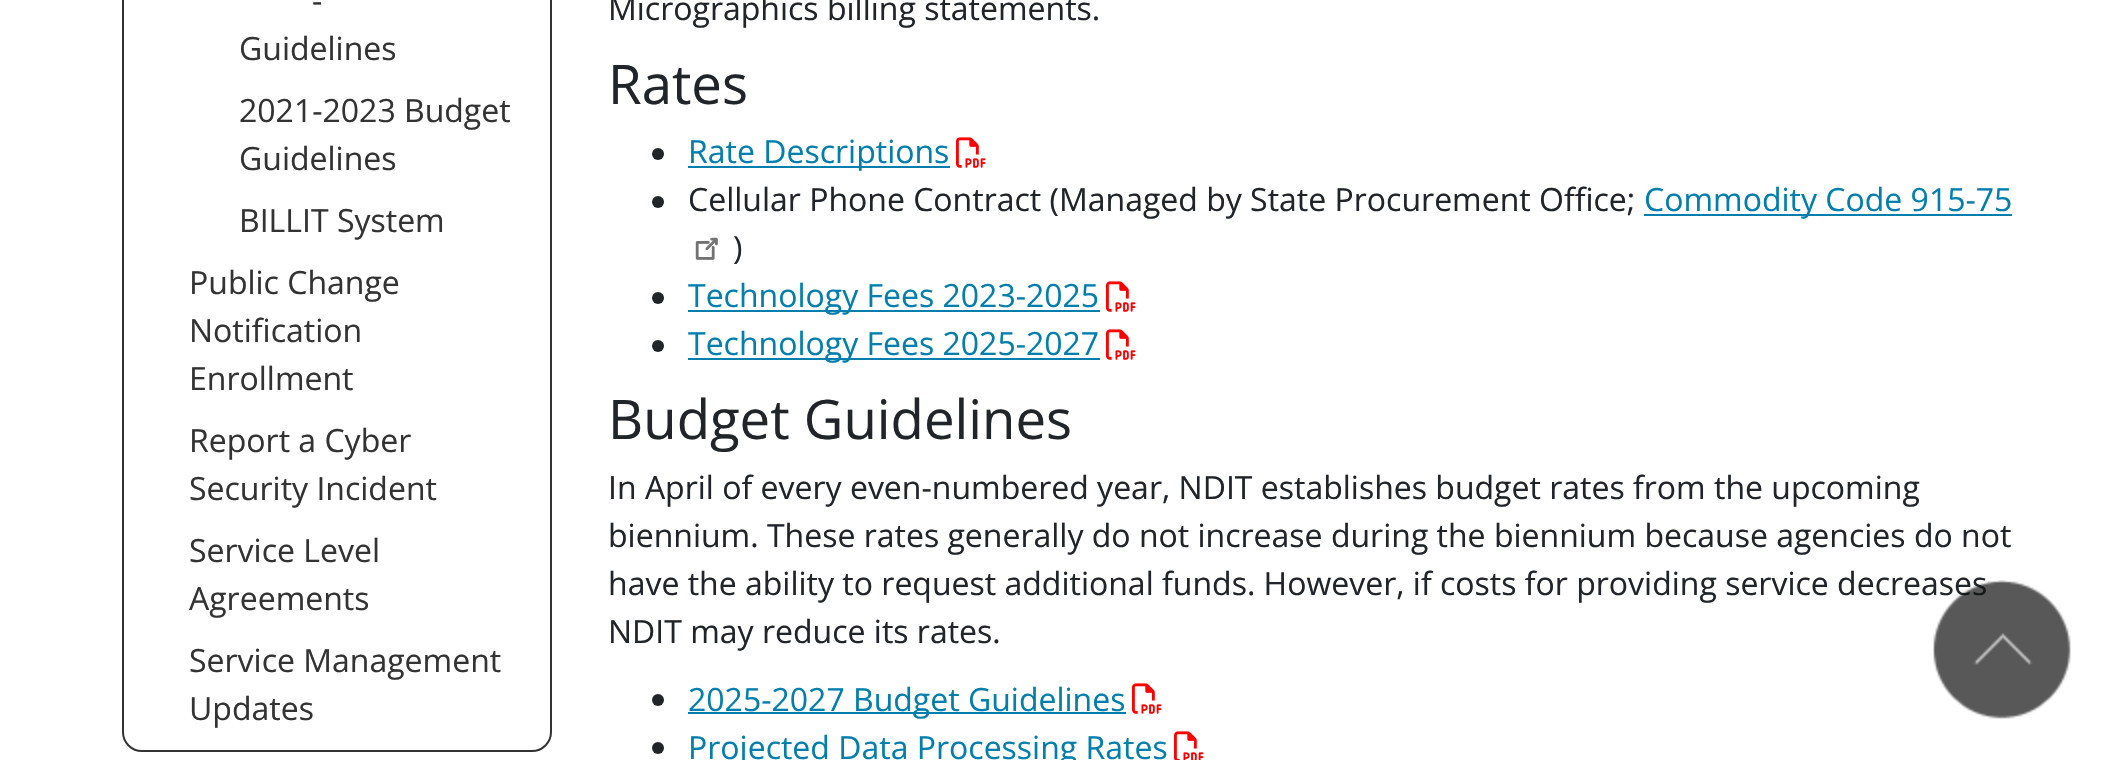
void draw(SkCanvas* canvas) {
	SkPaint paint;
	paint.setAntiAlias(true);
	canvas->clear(0xffffffff);
	paint.setStroke(true);
	paint.setStrokeWidth(2);
	paint.setColor(0xff333333);
	canvas->drawRoundRect(SkRect::MakeXYWH(123, -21, 428, 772), 19, 19, paint);
	SkFont f1(fontMgr->matchFamilyStyle("Open Sans", SkFontStyle::Normal()), 32);
	f1.setSubpixel(true);
	paint.setStroke(false);
	canvas->drawString("-", 312, 12, f1, paint);
	canvas->drawString("Guidelines", 239, 60, f1, paint);
	canvas->drawString("2021-2023 Budget", 239, 122, f1, paint);
	canvas->drawString("Guidelines", 239, 170, f1, paint);
	canvas->drawString("BILLIT System", 239, 232, f1, paint);
	canvas->drawString("Public Change", 189, 294, f1, paint);
	canvas->drawString("Notification", 189, 342, f1, paint);
	canvas->drawString("Enrollment", 189, 390, f1, paint);
	canvas->drawString("Report a Cyber", 189, 452, f1, paint);
	canvas->drawString("Security Incident", 189, 500, f1, paint);
	canvas->drawString("Service Level", 189, 562, f1, paint);
	canvas->drawString("Agreements", 189, 610, f1, paint);
	canvas->drawString("Service Management", 189, 672, f1, paint);
	canvas->drawString("Updates", 189, 720, f1, paint);
	paint.setColor(0xff212529);
	canvas->drawString("Micrographics billing statements.", 608, 20, f1, paint);
	SkFont f2(fontMgr->matchFamilyStyle("Open Sans", SkFontStyle::Normal()), 54.5);
	f2.setSubpixel(true);
	canvas->drawString("Rates", 608, 104, f2, paint);
	canvas->drawCircle(658, 154, 6, paint);
	paint.setColor(0xff037fae);
	canvas->drawRect(SkRect::MakeXYWH(688, 166, 262, 2), paint);
	canvas->drawString("Rate Descriptions", 688, 163, f1, paint);
	canvas->drawImageRect(SkImages::DeferredFromEncodedData(SkData::MakeFromFileName("img1.png")), SkRect::MakeXYWH(956, 137, 30, 31), SkSamplingOptions());
	paint.setColor(0xff212529);
	canvas->drawCircle(658, 202, 6, paint);
	canvas->drawString("Cellular Phone Contract (Managed by State Procurement Office;", 688, 211, f1, paint);
	paint.setColor(0xff037fae);
	canvas->drawRect(SkRect::MakeXYWH(1644, 214, 368, 2), paint);
	canvas->drawString("Commodity Code 915-75", 1644, 211, f1, paint);
	canvas->drawImageRect(SkImages::DeferredFromEncodedData(SkData::MakeFromFileName("img2.png")), SkRect::MakeXYWH(695, 237, 23, 23), SkSamplingOptions());
	paint.setColor(0xff212529);
	canvas->drawString(")", 733, 259, f1, paint);
	canvas->drawCircle(658, 298, 6, paint);
	paint.setColor(0xff037fae);
	canvas->drawRect(SkRect::MakeXYWH(688, 310, 412, 2), paint);
	canvas->drawString("Technology Fees 2023-2025", 688, 307, f1, paint);
	canvas->drawImageRect(SkImages::DeferredFromEncodedData(SkData::MakeFromFileName("img1.png")), SkRect::MakeXYWH(1106, 281, 30, 31), SkSamplingOptions());
	paint.setColor(0xff212529);
	canvas->drawCircle(658, 346, 6, paint);
	paint.setColor(0xff037fae);
	canvas->drawRect(SkRect::MakeXYWH(688, 358, 412, 2), paint);
	canvas->drawString("Technology Fees 2025-2027", 688, 355, f1, paint);
	canvas->drawImageRect(SkImages::DeferredFromEncodedData(SkData::MakeFromFileName("img1.png")), SkRect::MakeXYWH(1106, 329, 30, 31), SkSamplingOptions());
	paint.setColor(0xff212529);
	canvas->drawString("Budget Guidelines", 608, 439, f2, paint);
	canvas->drawString("In April of every even-numbered year, NDIT establishes budget rates from the upcoming", 608, 499, f1, paint);
	canvas->drawString("biennium. These rates generally do not increase during the biennium because agencies do not", 608, 547, f1, paint);
	canvas->drawString("have the ability to request additional funds. However, if costs for providing service decreases", 608, 595, f1, paint);
	canvas->drawString("NDIT may reduce its rates.", 608, 643, f1, paint);
	canvas->drawCircle(658, 700, 6, paint);
	paint.setColor(0xff037fae);
	canvas->drawRect(SkRect::MakeXYWH(688, 712, 438, 2), paint);
	canvas->drawString("2025-2027 Budget Guidelines", 688, 711, f1, paint);
	canvas->drawImageRect(SkImages::DeferredFromEncodedData(SkData::MakeFromFileName("img1.png")), SkRect::MakeXYWH(1132, 683, 30, 31), SkSamplingOptions());
	paint.setColor(0xff212529);
	canvas->drawCircle(658, 748, 6, paint);
	paint.setColor(0xff037fae);
	canvas->drawString("Projected Data Processing Rates", 688, 759, f1, paint);
	canvas->drawImageRect(SkImages::DeferredFromEncodedData(SkData::MakeFromFileName("img3.png")), SkRect::MakeXYWH(1174, 731, 30, 29), SkSamplingOptions());
	canvas->drawImageRect(SkImages::DeferredFromEncodedData(SkData::MakeFromFileName("img4.png")), SkRect::MakeXYWH(1932, 580, 139, 139), SkSamplingOptions());
}
